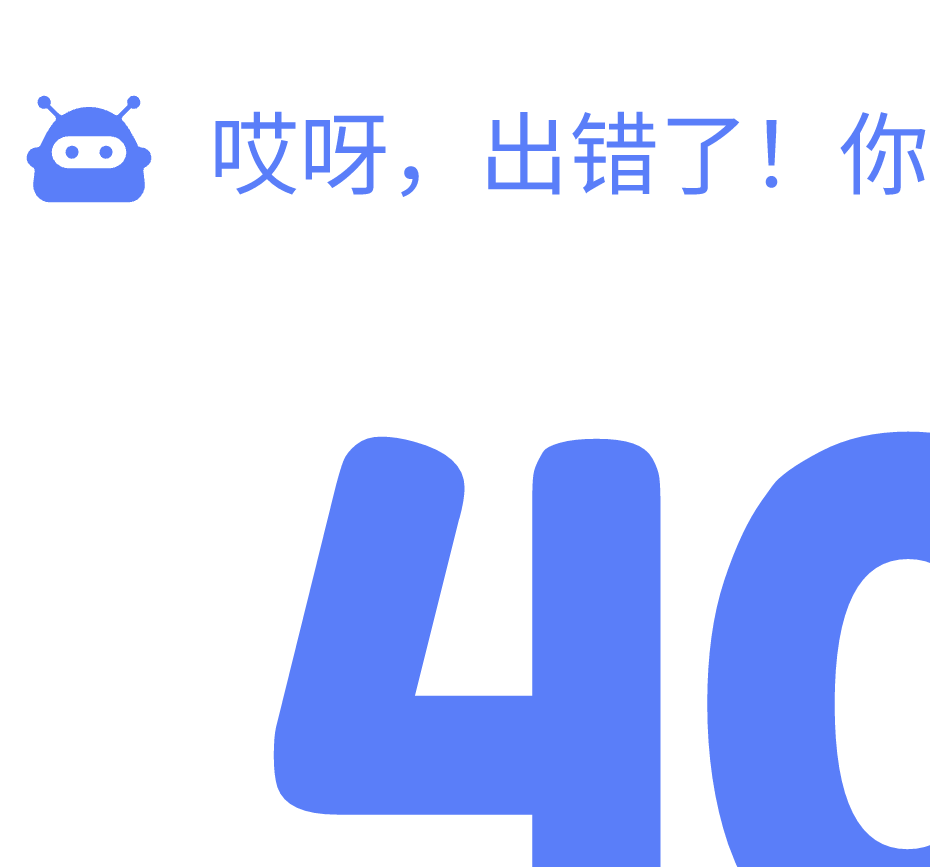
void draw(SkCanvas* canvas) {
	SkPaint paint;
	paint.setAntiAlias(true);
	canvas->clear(0xffffffff);
	canvas->drawImageRect(SkImages::DeferredFromEncodedData(SkData::MakeFromFileName("img1.png")), SkRect::MakeXYWH(26, 95, 904, 772), SkSamplingOptions());
}
